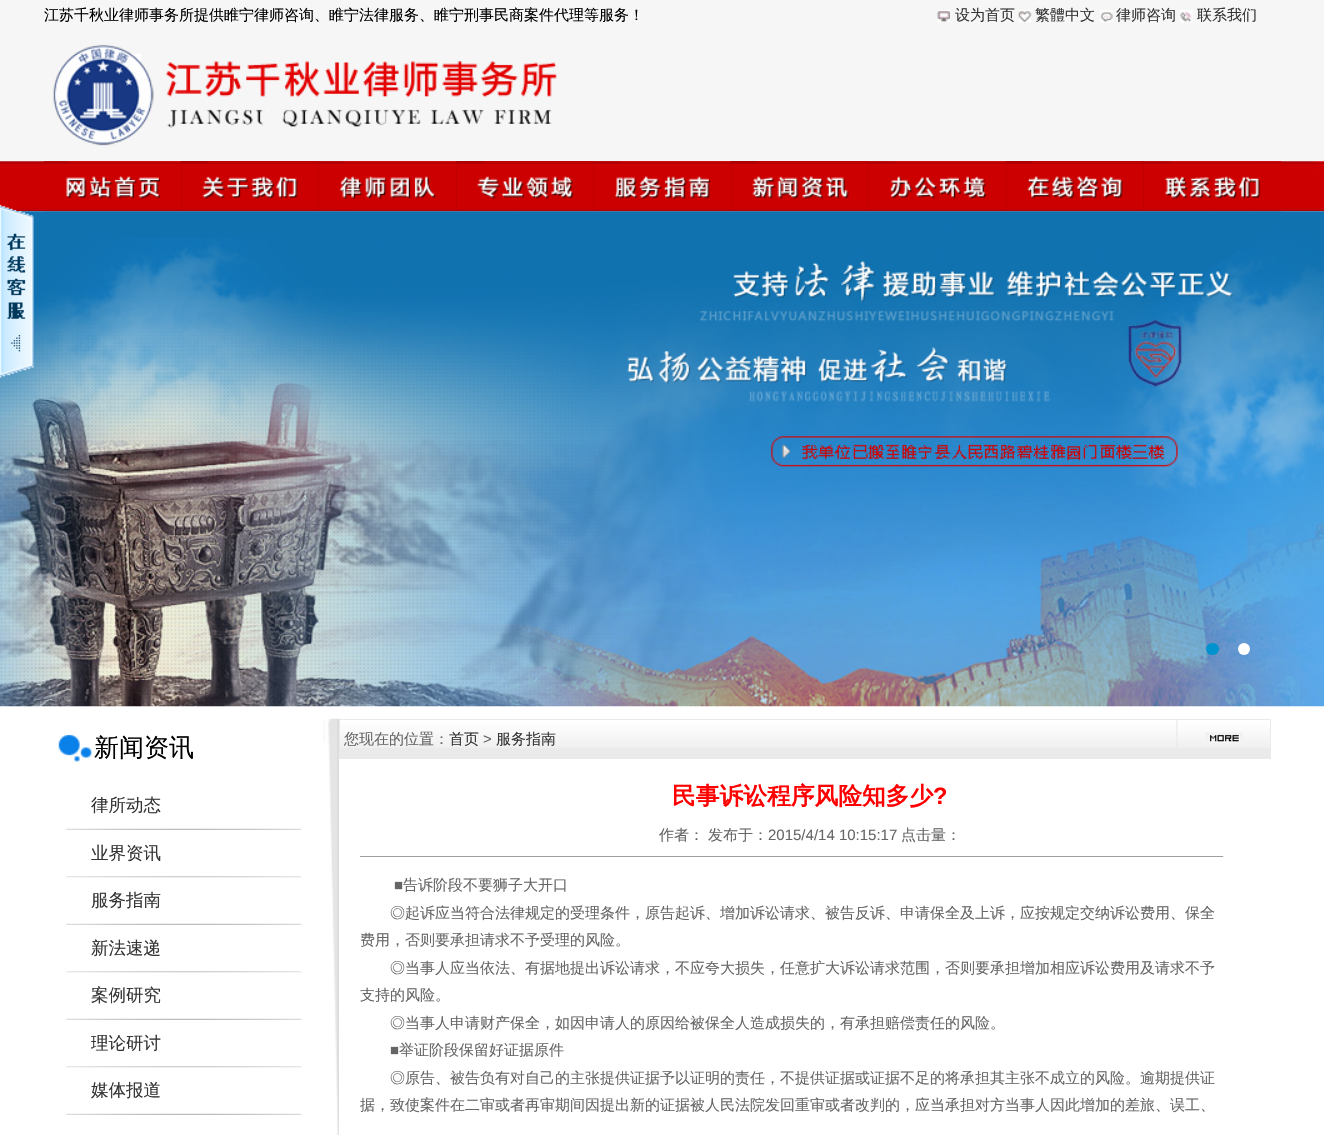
void draw(SkCanvas* canvas) {
	SkPaint paint;
	paint.setAntiAlias(true);
	canvas->clear(0xffffffff);
	paint.setColor(0xfff6f6f6);
	canvas->drawRect(SkRect::MakeXYWH(0, 0, 1324, 161), paint);
	SkFont f1(fontMgr->matchFamilyStyle("WenQuanYi Zen Hei", SkFontStyle(500, SkFontStyle::kNormal_Width, SkFontStyle::kUpright_Slant)), 15);
	f1.setSubpixel(true);
	paint.setColor(0xff000000);
	canvas->drawString("江苏千秋业律师事务所提供睢宁律师咨询、睢宁法律服务、睢宁刑事民商案件代理等服务！", 44, 20, f1, paint);
	canvas->drawImageRect(SkImages::DeferredFromEncodedData(SkData::MakeFromFileName("img1.png")), SkRect::MakeXYWH(937, 10, 13, 13), SkSamplingOptions());
	paint.setColor(0xff353535);
	canvas->drawString("设为首页", 955, 20, f1, paint);
	canvas->drawImageRect(SkImages::DeferredFromEncodedData(SkData::MakeFromFileName("img2.png")), SkRect::MakeXYWH(1018, 10, 14, 13), SkSamplingOptions());
	canvas->drawString("繁體中文", 1035, 20, f1, paint);
	canvas->drawImageRect(SkImages::DeferredFromEncodedData(SkData::MakeFromFileName("img3.png")), SkRect::MakeXYWH(1100, 10, 13, 13), SkSamplingOptions());
	canvas->drawString("律师咨询", 1116, 20, f1, paint);
	canvas->drawImageRect(SkImages::DeferredFromEncodedData(SkData::MakeFromFileName("img4.png")), SkRect::MakeXYWH(1180, 10, 13, 13), SkSamplingOptions());
	canvas->drawString("联系我们", 1197, 20, f1, paint);
	canvas->drawImageRect(SkImages::DeferredFromEncodedData(SkData::MakeFromFileName("img5.png")), SkRect::MakeXYWH(53, 44, 504, 102), SkSamplingOptions());
	canvas->drawImageRect(SkImages::DeferredFromEncodedData(SkData::MakeFromFileName("img6.png")), SkRect::MakeXYWH(0, 161, 1324, 51), SkSamplingOptions());
	paint.setColor(0xff990000);
	canvas->drawRect(SkRect::MakeXYWH(181, 161, 138, 50), paint);
	canvas->drawImageRect(SkImages::DeferredFromEncodedData(SkData::MakeFromFileName("img7.png")), SkRect::MakeXYWH(43, 161, 139, 51), SkSamplingOptions());
	canvas->drawImageRect(SkImages::DeferredFromEncodedData(SkData::MakeFromFileName("img8.png")), SkRect::MakeXYWH(181, 161, 138, 51), SkSamplingOptions());
	canvas->drawRect(SkRect::MakeXYWH(456, 161, 138, 50), paint);
	canvas->drawImageRect(SkImages::DeferredFromEncodedData(SkData::MakeFromFileName("img9.png")), SkRect::MakeXYWH(318, 161, 139, 51), SkSamplingOptions());
	canvas->drawImageRect(SkImages::DeferredFromEncodedData(SkData::MakeFromFileName("img10.png")), SkRect::MakeXYWH(456, 161, 138, 51), SkSamplingOptions());
	canvas->drawRect(SkRect::MakeXYWH(731, 161, 138, 50), paint);
	canvas->drawImageRect(SkImages::DeferredFromEncodedData(SkData::MakeFromFileName("img11.png")), SkRect::MakeXYWH(593, 161, 139, 51), SkSamplingOptions());
	canvas->drawImageRect(SkImages::DeferredFromEncodedData(SkData::MakeFromFileName("img12.png")), SkRect::MakeXYWH(731, 161, 138, 51), SkSamplingOptions());
	canvas->drawRect(SkRect::MakeXYWH(1006, 161, 138, 50), paint);
	canvas->drawImageRect(SkImages::DeferredFromEncodedData(SkData::MakeFromFileName("img13.png")), SkRect::MakeXYWH(868, 161, 139, 51), SkSamplingOptions());
	canvas->drawImageRect(SkImages::DeferredFromEncodedData(SkData::MakeFromFileName("img14.png")), SkRect::MakeXYWH(1006, 161, 138, 51), SkSamplingOptions());
	canvas->drawImageRect(SkImages::DeferredFromEncodedData(SkData::MakeFromFileName("img15.png")), SkRect::MakeXYWH(1143, 161, 139, 51), SkSamplingOptions());
	canvas->drawImageRect(SkImages::DeferredFromEncodedData(SkData::MakeFromFileName("img17.png")), SkRect::MakeXYWH(0, 211, 1324, 496), SkSamplingOptions());
	canvas->drawImageRect(SkImages::DeferredFromEncodedData(SkData::MakeFromFileName("img16.png")), SkRect::MakeXYWH(0, 204, 34, 174), SkSamplingOptions());
	paint.setColor(0xff0092ce);
	canvas->drawRoundRect(SkRect::MakeXYWH(1206, 643, 13, 12), 6, 6, paint);
	paint.setColor(0xffffffff);
	canvas->drawCircle(1244, 649, 6, paint);
	canvas->drawImageRect(SkImages::DeferredFromEncodedData(SkData::MakeFromFileName("img18.png")), SkRect::MakeXYWH(58, 734, 34, 28), SkSamplingOptions());
	SkFont f2(fontMgr->matchFamilyStyle("WenQuanYi Zen Hei", SkFontStyle(500, SkFontStyle::kNormal_Width, SkFontStyle::kUpright_Slant)), 25);
	f2.setSubpixel(true);
	paint.setColor(0xff000000);
	canvas->drawString("新闻资讯", 94, 756, f2, paint);
	canvas->drawImageRect(SkImages::DeferredFromEncodedData(SkData::MakeFromFileName("img19.png")), SkRect::MakeXYWH(66, 828, 236, 2), SkSamplingOptions());
	SkFont f3(fontMgr->matchFamilyStyle("WenQuanYi Zen Hei", SkFontStyle(500, SkFontStyle::kNormal_Width, SkFontStyle::kUpright_Slant)), 17.5);
	f3.setSubpixel(true);
	paint.setColor(0xff353535);
	canvas->drawString("律所动态", 91, 811, f3, paint);
	canvas->drawImageRect(SkImages::DeferredFromEncodedData(SkData::MakeFromFileName("img20.png")), SkRect::MakeXYWH(66, 876, 236, 2), SkSamplingOptions());
	canvas->drawString("业界资讯", 91, 859, f3, paint);
	canvas->drawImageRect(SkImages::DeferredFromEncodedData(SkData::MakeFromFileName("img21.png")), SkRect::MakeXYWH(66, 877, 236, 48), SkSamplingOptions());
	canvas->drawString("服务指南", 91, 906, f3, paint);
	canvas->drawImageRect(SkImages::DeferredFromEncodedData(SkData::MakeFromFileName("img20.png")), SkRect::MakeXYWH(66, 971, 236, 2), SkSamplingOptions());
	canvas->drawString("新法速递", 91, 954, f3, paint);
	canvas->drawImageRect(SkImages::DeferredFromEncodedData(SkData::MakeFromFileName("img21.png")), SkRect::MakeXYWH(66, 972, 236, 48), SkSamplingOptions());
	canvas->drawString("案例研究", 91, 1001, f3, paint);
	canvas->drawImageRect(SkImages::DeferredFromEncodedData(SkData::MakeFromFileName("img20.png")), SkRect::MakeXYWH(66, 1066, 236, 2), SkSamplingOptions());
	canvas->drawString("理论研讨", 91, 1049, f3, paint);
	canvas->drawImageRect(SkImages::DeferredFromEncodedData(SkData::MakeFromFileName("img21.png")), SkRect::MakeXYWH(66, 1067, 236, 48), SkSamplingOptions());
	canvas->drawString("媒体报道", 91, 1096, f3, paint);
	canvas->drawImageRect(SkImages::DeferredFromEncodedData(SkData::MakeFromFileName("img22.png")), SkRect::MakeXYWH(323, 718, 16, 417), SkSamplingOptions());
	paint.setColor(0xffeaeaea);
	canvas->drawRect(SkRect::MakeXYWH(339, 719, 932, 40), paint);
	canvas->drawImageRect(SkImages::DeferredFromEncodedData(SkData::MakeFromFileName("img23.png")), SkRect::MakeXYWH(340, 720, 837, 28), SkSamplingOptions());
	paint.setColor(0xff666666);
	canvas->drawString("您现在的位置：", 344, 744, f1, paint);
	paint.setColor(0xff353535);
	canvas->drawString("首页", 449, 744, f1, paint);
	SkFont f4(fontMgr->matchFamilyStyle("Liberation Sans", SkFontStyle::Normal()), 15);
	f4.setSubpixel(true);
	paint.setColor(0xff666666);
	canvas->drawString(">", 483, 744, f4, paint);
	paint.setColor(0xff353535);
	canvas->drawString("服务指南", 496, 744, f1, paint);
	canvas->drawImageRect(SkImages::DeferredFromEncodedData(SkData::MakeFromFileName("img24.png")), SkRect::MakeXYWH(1177, 720, 93, 28), SkSamplingOptions());
	canvas->drawImageRect(SkImages::DeferredFromEncodedData(SkData::MakeFromFileName("img25.png")), SkRect::MakeXYWH(1205, 732, 38, 11), SkSamplingOptions());
	SkFont f5(fontMgr->matchFamilyStyle("WenQuanYi Zen Hei", SkFontStyle::Bold()), 23.75);
	f5.setSubpixel(true);
	paint.setColor(0xffff0000);
	canvas->drawString("民事诉讼程序风险知多少", 672, 804, f5, paint);
	SkFont f6(fontMgr->matchFamilyStyle("Liberation Sans", SkFontStyle::Bold()), 23.75);
	f6.setSubpixel(true);
	canvas->drawString("?", 933, 804, f6, paint);
	paint.setColor(0xff666666);
	canvas->drawString("作者：", 659, 840, f1, paint);
	canvas->drawString("发布于：", 708, 840, f1, paint);
	canvas->drawString("2015/4/14 10:15:17", 768, 840, f4, paint);
	canvas->drawString("点击量：", 901, 840, f1, paint);
	paint.setColor(0xff9f9f9f);
	canvas->drawRect(SkRect::MakeXYWH(360, 856, 864, 1), paint);
	paint.setColor(0xffeeeeee);
	canvas->drawRect(SkRect::MakeXYWH(1223, 856, 1, 1), paint);
	paint.setColor(0xff666666);
	canvas->drawString("■", 394, 890, f4, paint);
	canvas->drawString("告诉阶段不要狮子大开口", 403, 890, f1, paint);
	canvas->drawString("◎起诉应当符合法律规定的受理条件，原告起诉、增加诉讼请求、被告反诉、申请保全及上诉，应按规定交纳诉讼费用、保全", 390, 918, f1, paint);
	canvas->drawString("费用，否则要承担请求不予受理的风险。", 360, 945, f1, paint);
	canvas->drawString("◎当事人应当依法、有据地提出诉讼请求，不应夸大损失，任意扩大诉讼请求范围，否则要承担增加相应诉讼费用及请求不予", 390, 973, f1, paint);
	canvas->drawString("支持的风险。", 360, 1000, f1, paint);
	canvas->drawString("◎当事人申请财产保全，如因申请人的原因给被保全人造成损失的，有承担赔偿责任的风险。", 390, 1028, f1, paint);
	canvas->drawString("■", 390, 1055, f4, paint);
	canvas->drawString("举证阶段保留好证据原件", 399, 1055, f1, paint);
	canvas->drawString("◎原告、被告负有对自己的主张提供证据予以证明的责任，不提供证据或证据不足的将承担其主张不成立的风险。逾期提供证", 390, 1083, f1, paint);
	canvas->drawString("据，致使案件在二审或者再审期间因提出新的证据被人民法院发回重审或者改判的，应当承担对方当事人因此增加的差旅、误工、", 360, 1110, f1, paint);
}
